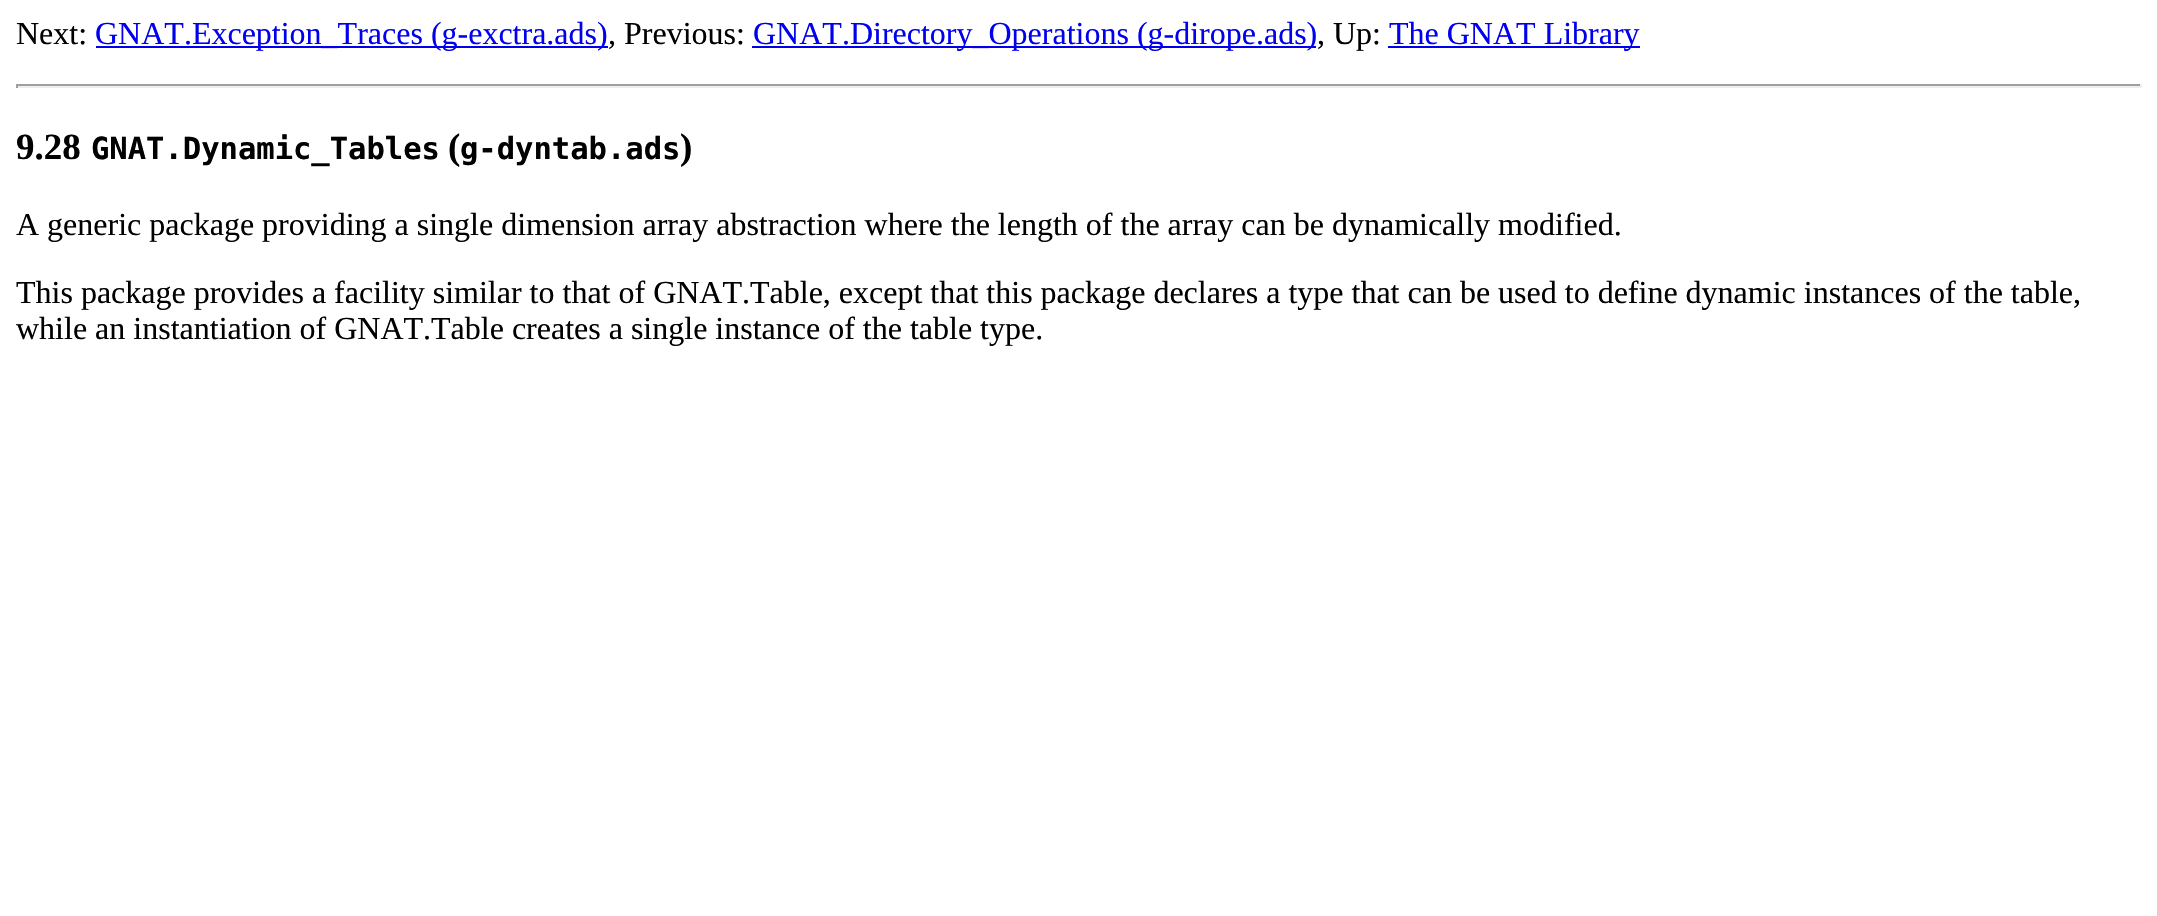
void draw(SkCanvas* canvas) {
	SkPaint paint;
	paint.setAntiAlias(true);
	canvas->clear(0xffffffff);
	SkFont f1(fontMgr->matchFamilyStyle("Liberation Serif", SkFontStyle::Normal()), 32);
	f1.setSubpixel(true);
	paint.setColor(0xff000000);
	canvas->drawString("Next:", 16, 44, f1, paint);
	paint.setColor(0xff0000ee);
	canvas->drawRect(SkRect::MakeXYWH(96, 46, 512, 2), paint);
	canvas->drawString("GNAT.Exception_Traces (g-exctra.ads)", 95, 44, f1, paint);
	paint.setColor(0xff000000);
	canvas->drawString(", Previous:", 608, 44, f1, paint);
	paint.setColor(0xff0000ee);
	canvas->drawRect(SkRect::MakeXYWH(752, 46, 564, 2), paint);
	canvas->drawString("GNAT.Directory_Operations (g-dirope.ads)", 753, 44, f1, paint);
	paint.setColor(0xff000000);
	canvas->drawString(", Up:", 1317, 44, f1, paint);
	paint.setColor(0xff0000ee);
	canvas->drawRect(SkRect::MakeXYWH(1388, 46, 252, 2), paint);
	canvas->drawString("The GNAT Library", 1389, 44, f1, paint);
	paint.setColor(0xff9f9f9f);
	canvas->drawRect(SkRect::MakeXYWH(16, 84, 2126, 2), paint);
	paint.setColor(0xffeeeeee);
	canvas->drawRect(SkRect::MakeXYWH(2140, 84, 2, 4), paint);
	canvas->drawRect(SkRect::MakeXYWH(16, 86, 2126, 2), paint);
	paint.setColor(0xff9f9f9f);
	canvas->drawRect(SkRect::MakeXYWH(16, 84, 2, 4), paint);
	SkFont f2(fontMgr->matchFamilyStyle("Liberation Serif", SkFontStyle::Bold()), 37);
	f2.setSubpixel(true);
	paint.setColor(0xff000000);
	canvas->drawString("9.28", 16, 159, f2, paint);
	SkFont f3(fontMgr->matchFamilyStyle("DejaVu Sans Mono", SkFontStyle::Bold()), 30.5);
	f3.setSubpixel(true);
	canvas->drawString("GNAT.Dynamic_Tables", 91, 159, f3, paint);
	canvas->drawString("(", 448, 159, f2, paint);
	canvas->drawString("g-dyntab.ads", 460, 159, f3, paint);
	canvas->drawString(")", 680, 159, f2, paint);
	canvas->drawString("A generic package providing a single dimension array abstraction where the length of the array can be dynamically modified.", 16, 235, f1, paint);
	canvas->drawString("This package provides a facility similar to that of GNAT.Table, except that this package declares a type that can be used to define dynamic instances of the table,", 16, 303, f1, paint);
	canvas->drawString("while an instantiation of GNAT.Table creates a single instance of the table type.", 16, 339, f1, paint);
}
